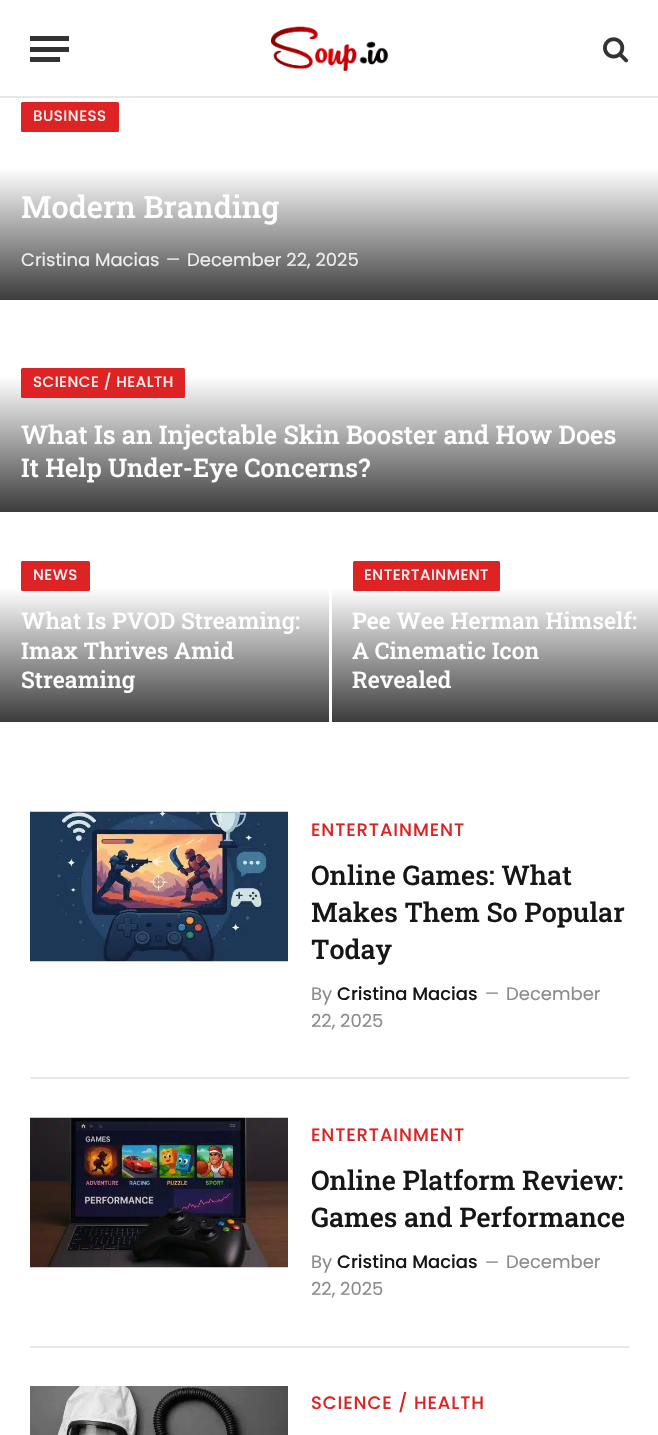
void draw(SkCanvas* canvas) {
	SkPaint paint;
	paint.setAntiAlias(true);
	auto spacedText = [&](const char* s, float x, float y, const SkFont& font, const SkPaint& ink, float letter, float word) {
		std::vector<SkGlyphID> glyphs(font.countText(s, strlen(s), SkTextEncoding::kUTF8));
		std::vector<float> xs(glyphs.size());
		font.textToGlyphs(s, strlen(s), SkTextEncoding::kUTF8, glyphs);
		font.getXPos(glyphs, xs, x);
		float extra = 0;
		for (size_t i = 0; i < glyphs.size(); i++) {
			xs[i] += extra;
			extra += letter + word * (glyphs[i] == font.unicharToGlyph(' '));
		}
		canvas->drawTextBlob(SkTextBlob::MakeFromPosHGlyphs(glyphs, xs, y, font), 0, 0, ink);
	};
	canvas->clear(0xffffffff);
	paint.setColor(0xffe8e8e8);
	canvas->drawRect(SkRect::MakeXYWH(0, 96, 658, 2), paint);
	paint.setColor(0xff333333);
	canvas->drawRect(SkRect::MakeXYWH(30, 57, 30, 5), paint);
	canvas->drawRect(SkRect::MakeXYWH(30, 36, 39, 5), paint);
	canvas->drawRect(SkRect::MakeXYWH(30, 47, 39, 5), paint);
	canvas->drawImageRect(SkImages::DeferredFromEncodedData(SkData::MakeFromFileName("img1.png")), SkRect::MakeXYWH(270, 26, 119, 46), SkSamplingOptions());
	canvas->drawImageRect(SkImages::DeferredFromEncodedData(SkData::MakeFromFileName("img2.png")), SkRect::MakeXYWH(603, 37, 26, 26), SkSamplingOptions());
	paint.setColor(0xffdd2323);
	canvas->drawRoundRect(SkRect::MakeXYWH(21, 102, 98, 30), 1.5, 1.5, paint);
	SkFont f1(fontMgr->matchFamilyStyle("Poppins", SkFontStyle(500, SkFontStyle::kNormal_Width, SkFontStyle::kUpright_Slant)), 15);
	f1.setSubpixel(true);
	paint.setColor(0xffefefef);
	spacedText("BUSINESS", 33, 121, f1, paint, 0.5, 0);
	{
		const SkColor colors[] = {0xffffffff, 0xff3c3c3c};
		const float stops[] = {0.35, 1};
		const SkPoint ends[] = {{329, 97}, {329, 300}};
		paint.setShader(SkGradientShader::MakeLinear(ends, colors, stops, 2, SkTileMode::kClamp));
		paint.setAlpha(255);
	}
	canvas->drawRect(SkRect::MakeXYWH(0, 170, 658, 130), paint);
	SkFont f2(fontMgr->matchFamilyStyle("Roboto Slab", SkFontStyle(500, SkFontStyle::kNormal_Width, SkFontStyle::kUpright_Slant)), 30.75);
	f2.setSubpixel(true);
	paint.setShader(nullptr);
	paint.setColor(0xffffffff);
	canvas->drawString("Modern Branding", 21, 218, f2, paint);
	SkFont f3(fontMgr->matchFamilyStyle("Poppins", SkFontStyle::Normal()), 18);
	f3.setSubpixel(true);
	paint.setColor(0xffefefef);
	canvas->drawString("Cristina Macias", 21, 266, f3, paint);
	SkFont f4(fontMgr->matchFamilyStyle("Poppins", SkFontStyle::Normal()), 16);
	f4.setSubpixel(true);
	canvas->drawString("—", 166, 265, f4, paint);
	canvas->drawString("December 22, 2025", 187, 266, f3, paint);
	{
		const SkColor colors[] = {0xffffffff, 0xff3c3c3c};
		const float stops[] = {0.35, 1};
		const SkPoint ends[] = {{329, 303}, {329, 512}};
		paint.setShader(SkGradientShader::MakeLinear(ends, colors, stops, 2, SkTileMode::kClamp));
		paint.setAlpha(255);
	}
	canvas->drawRect(SkRect::MakeXYWH(0, 378, 658, 134), paint);
	paint.setShader(nullptr);
	paint.setColor(0xffdd2323);
	canvas->drawRoundRect(SkRect::MakeXYWH(21, 368, 164, 30), 1.5, 1.5, paint);
	paint.setColor(0xffefefef);
	spacedText("SCIENCE / HEALTH", 33, 387, f1, paint, 0.5, 0);
	SkFont f5(fontMgr->matchFamilyStyle("Roboto Slab", SkFontStyle(500, SkFontStyle::kNormal_Width, SkFontStyle::kUpright_Slant)), 25.5);
	f5.setSubpixel(true);
	paint.setColor(0xffffffff);
	canvas->drawString("What Is an Injectable Skin Booster and How Does", 21, 444, f5, paint);
	canvas->drawString("It Help Under-Eye Concerns?", 21, 477, f5, paint);
	{
		const SkColor colors[] = {0xffffffff, 0xff3c3c3c};
		const float stops[] = {0.35, 1};
		const SkPoint ends[] = {{164, 515}, {164, 722}};
		paint.setShader(SkGradientShader::MakeLinear(ends, colors, stops, 2, SkTileMode::kClamp));
		paint.setAlpha(255);
	}
	canvas->drawRect(SkRect::MakeXYWH(0, 589, 329, 133), paint);
	paint.setShader(nullptr);
	paint.setColor(0xffdd2323);
	canvas->drawRoundRect(SkRect::MakeXYWH(21, 561, 69, 30), 1.5, 1.5, paint);
	paint.setColor(0xffefefef);
	spacedText("NEWS", 33, 580, f1, paint, 0.5, 0);
	SkFont f6(fontMgr->matchFamilyStyle("Roboto Slab", SkFontStyle(500, SkFontStyle::kNormal_Width, SkFontStyle::kUpright_Slant)), 23);
	f6.setSubpixel(true);
	paint.setColor(0xffffffff);
	canvas->drawString("What Is PVOD Streaming:", 21, 629, f6, paint);
	canvas->drawString("Imax Thrives Amid", 21, 659, f6, paint);
	canvas->drawString("Streaming", 21, 688, f6, paint);
	{
		const SkColor colors[] = {0xffffffff, 0xff3c3c3c};
		const float stops[] = {0.35, 1};
		const SkPoint ends[] = {{495, 515}, {495, 722}};
		paint.setShader(SkGradientShader::MakeLinear(ends, colors, stops, 2, SkTileMode::kClamp));
		paint.setAlpha(255);
	}
	canvas->drawRect(SkRect::MakeXYWH(332, 589, 326, 133), paint);
	paint.setShader(nullptr);
	paint.setColor(0xffdd2323);
	canvas->drawRoundRect(SkRect::MakeXYWH(353, 561, 147, 30), 1.5, 1.5, paint);
	paint.setColor(0xffefefef);
	spacedText("ENTERTAINMENT", 364, 580, f1, paint, 0.5, 0);
	paint.setColor(0xffffffff);
	canvas->drawString("Pee Wee Herman Himself:", 352, 629, f6, paint);
	canvas->drawString("A Cinematic Icon", 352, 659, f6, paint);
	canvas->drawString("Revealed", 352, 688, f6, paint);
	canvas->drawImageRect(SkImages::DeferredFromEncodedData(SkData::MakeFromFileName("img3.png")), SkRect::MakeXYWH(30, 811, 258, 151), SkSamplingOptions());
	SkFont f7(fontMgr->matchFamilyStyle("Poppins", SkFontStyle(500, SkFontStyle::kNormal_Width, SkFontStyle::kUpright_Slant)), 18);
	f7.setSubpixel(true);
	paint.setColor(0xffdd2323);
	spacedText("ENTERTAINMENT", 311, 836, f7, paint, 0.9, 0);
	SkFont f8(fontMgr->matchFamilyStyle("Roboto Slab", SkFontStyle(500, SkFontStyle::kNormal_Width, SkFontStyle::kUpright_Slant)), 27);
	f8.setSubpixel(true);
	paint.setColor(0xff161616);
	canvas->drawString("Online Games: What", 311, 885, f8, paint);
	canvas->drawString("Makes Them So Popular", 311, 922, f8, paint);
	canvas->drawString("Today", 311, 959, f8, paint);
	paint.setColor(0xff8a8a8a);
	canvas->drawString("—", 485, 999, f4, paint);
	canvas->drawString("December", 506, 1000, f3, paint);
	canvas->drawString("22, 2025", 311, 1027, f3, paint);
	canvas->drawString("By", 311, 1000, f3, paint);
	paint.setColor(0xff161616);
	canvas->drawString("Cristina Macias", 337, 1000, f7, paint);
	paint.setColor(0xffe8e8e8);
	canvas->drawRect(SkRect::MakeXYWH(30, 1077, 599, 2), paint);
	canvas->drawImageRect(SkImages::DeferredFromEncodedData(SkData::MakeFromFileName("img4.png")), SkRect::MakeXYWH(30, 1117, 258, 151), SkSamplingOptions());
	paint.setColor(0xffdd2323);
	spacedText("ENTERTAINMENT", 311, 1141, f7, paint, 0.9, 0);
	paint.setColor(0xff161616);
	canvas->drawString("Online Platform Review:", 311, 1190, f8, paint);
	canvas->drawString("Games and Performance", 311, 1227, f8, paint);
	paint.setColor(0xff8a8a8a);
	canvas->drawString("—", 485, 1268, f4, paint);
	canvas->drawString("December", 506, 1268, f3, paint);
	canvas->drawString("22, 2025", 311, 1295, f3, paint);
	canvas->drawString("By", 311, 1268, f3, paint);
	paint.setColor(0xff161616);
	canvas->drawString("Cristina Macias", 337, 1268, f7, paint);
	paint.setColor(0xffe8e8e8);
	canvas->drawRect(SkRect::MakeXYWH(30, 1346, 599, 2), paint);
	canvas->drawImageRect(SkImages::DeferredFromEncodedData(SkData::MakeFromFileName("img5.png")), SkRect::MakeXYWH(30, 1386, 258, 49), SkSamplingOptions());
	paint.setColor(0xffdd2323);
	spacedText("SCIENCE / HEALTH", 311, 1409, f7, paint, 0.9, 0);
}
